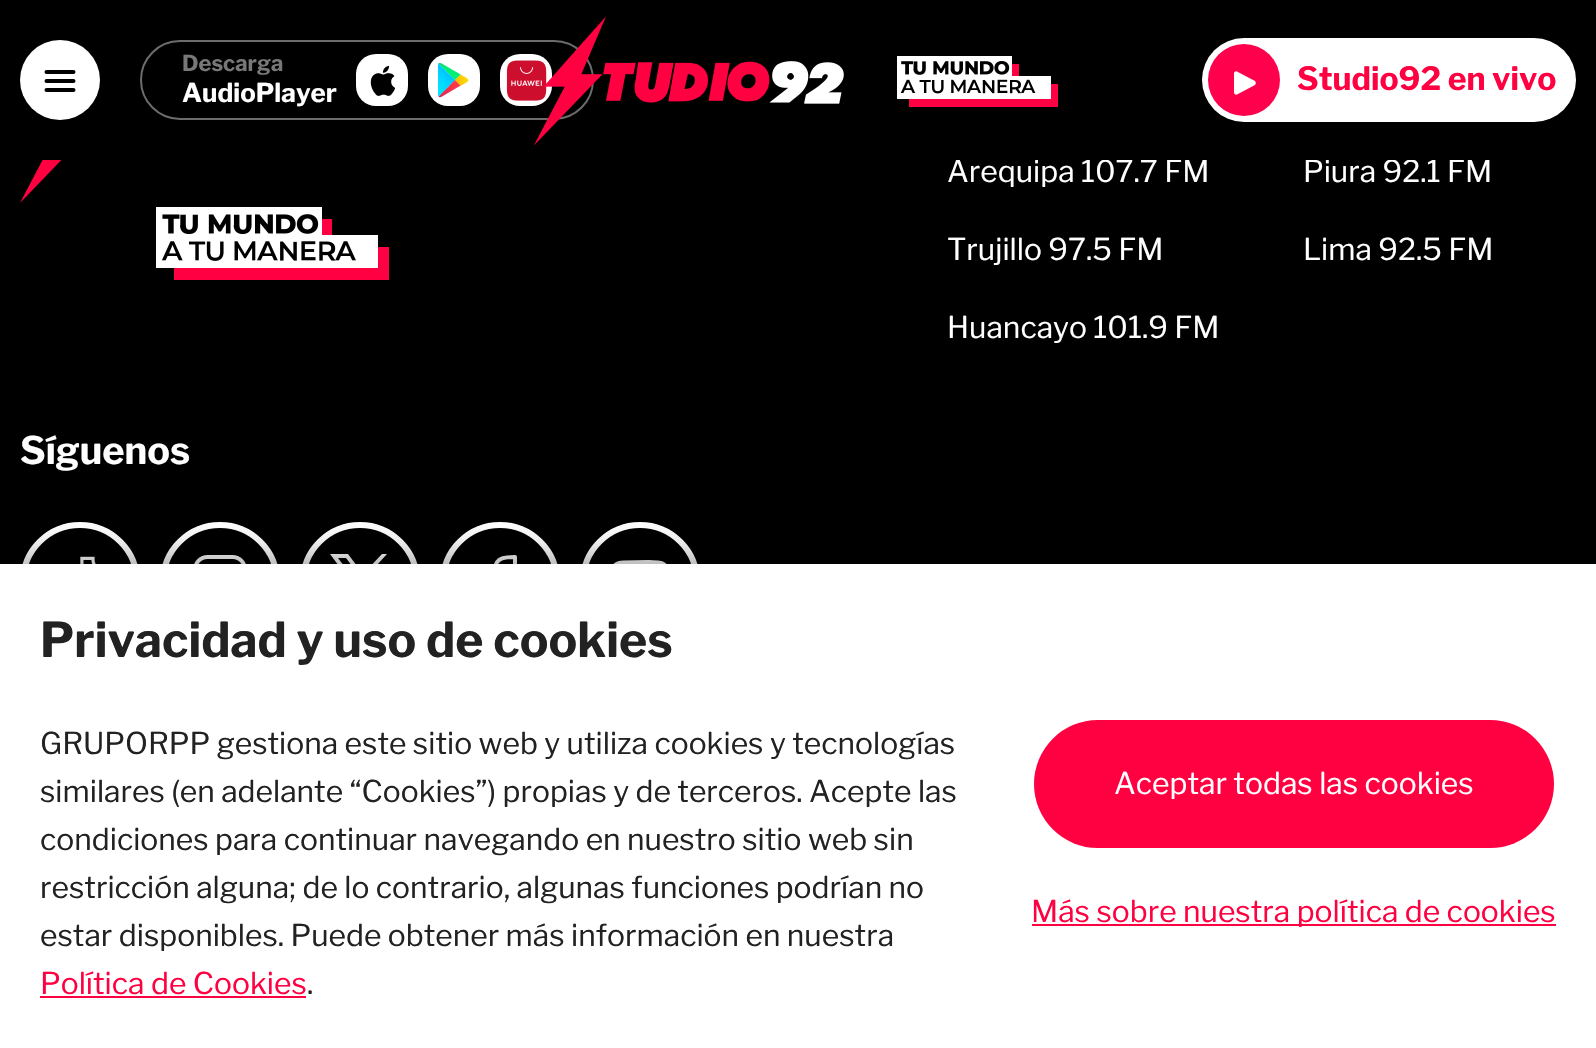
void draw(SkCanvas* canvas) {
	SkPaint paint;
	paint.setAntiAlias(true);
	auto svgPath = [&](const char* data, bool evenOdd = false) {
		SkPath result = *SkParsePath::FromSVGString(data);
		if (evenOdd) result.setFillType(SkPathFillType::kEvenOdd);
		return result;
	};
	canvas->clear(0xff000000);
	SkFont f1(fontMgr->matchFamilyStyle("Libre Franklin", SkFontStyle::Normal()), 30);
	f1.setSubpixel(true);
	paint.setColor(0xffffffff);
	canvas->drawString("Arequipa 107.7 FM", 947, 182, f1, paint);
	canvas->drawString("Piura 92.1 FM", 1303, 182, f1, paint);
	paint.setColor(0xff000000);
	canvas->drawRect(SkRect::MakeXYWH(956, 159, 534, 1), paint);
	paint.setColor(0xffffffff);
	canvas->drawCircle(60, 80, 40, paint);
	paint.setStroke(true);
	paint.setStrokeWidth(4);
	paint.setStrokeCap(SkPaint::kRound_Cap);
	paint.setStrokeJoin(SkPaint::kRound_Join);
	paint.setColor(0xff000000);
	canvas->drawPath(svgPath("M46.5 81H73.5M46.5 72H73.5M46.5 90H73.5"), paint);
	paint.setStrokeWidth(2);
	paint.setStrokeCap(SkPaint::kButt_Cap);
	paint.setStrokeJoin(SkPaint::kMiter_Join);
	paint.setColor(0xff6c6c6c);
	canvas->drawRoundRect(SkRect::MakeXYWH(141, 41, 452, 78), 39, 39, paint);
	SkFont f2(fontMgr->matchFamilyStyle("Libre Franklin", SkFontStyle::Bold()), 22);
	f2.setSubpixel(true);
	paint.setStroke(false);
	paint.setColor(0xff787878);
	canvas->drawString("Descarga", 182, 71, f2, paint);
	SkFont f3(fontMgr->matchFamilyStyle("Libre Franklin", SkFontStyle::Bold()), 26);
	f3.setSubpixel(true);
	paint.setColor(0xffffffff);
	canvas->drawString("AudioPlayer", 182, 102, f3, paint);
	canvas->drawRoundRect(SkRect::MakeXYWH(356, 54, 52, 52), 20, 20, paint);
	canvas->drawImageRect(SkImages::DeferredFromEncodedData(SkData::MakeFromFileName("img1.png")), SkRect::MakeXYWH(370, 65, 26, 31), SkSamplingOptions());
	canvas->drawRoundRect(SkRect::MakeXYWH(428, 54, 52, 52), 20, 20, paint);
	canvas->drawImageRect(SkImages::DeferredFromEncodedData(SkData::MakeFromFileName("img2.png")), SkRect::MakeXYWH(438, 62, 31, 36), SkSamplingOptions());
	canvas->drawRoundRect(SkRect::MakeXYWH(500, 54, 52, 52), 20, 20, paint);
	canvas->drawImageRect(SkImages::DeferredFromEncodedData(SkData::MakeFromFileName("img3.png")), SkRect::MakeXYWH(506, 60, 41, 41), SkSamplingOptions());
	canvas->drawImageRect(SkImages::DeferredFromEncodedData(SkData::MakeFromFileName("img4.png")), SkRect::MakeXYWH(534, 16, 310, 130), SkSamplingOptions());
	canvas->drawImageRect(SkImages::DeferredFromEncodedData(SkData::MakeFromFileName("img5.png")), SkRect::MakeXYWH(897, 56, 161, 51), SkSamplingOptions());
	canvas->drawRoundRect(SkRect::MakeXYWH(1202, 38, 374, 84), 42, 42, paint);
	paint.setColor(0xffff004d);
	canvas->drawCircle(1244, 80, 36, paint);
	paint.setColor(0xffffffff);
	canvas->drawPath(svgPath("M1234 73.5C1234 72 1235.5 71 1237 71.5L1255 81C1256 82 1256 84 1255 85L1237 94.5C1235.5 95 1234 94 1234 92.5Z", true), paint);
	SkFont f4(fontMgr->matchFamilyStyle("Libre Franklin", SkFontStyle::Bold()), 32);
	f4.setSubpixel(true);
	paint.setColor(0xffff0041);
	canvas->drawString("Studio92 en vivo", 1297, 90, f4, paint);
	canvas->drawImageRect(SkImages::DeferredFromEncodedData(SkData::MakeFromFileName("img6.png")), SkRect::MakeXYWH(20, 160, 42, 43), SkSamplingOptions());
	canvas->drawImageRect(SkImages::DeferredFromEncodedData(SkData::MakeFromFileName("img7.png")), SkRect::MakeXYWH(156, 207, 233, 73), SkSamplingOptions());
	paint.setColor(0xffffffff);
	canvas->drawString("Trujillo 97.5 FM", 947, 260, f1, paint);
	canvas->drawString("Lima 92.5 FM", 1303, 260, f1, paint);
	canvas->drawString("Huancayo 101.9 FM", 947, 338, f1, paint);
	SkFont f5(fontMgr->matchFamilyStyle("Libre Franklin", SkFontStyle::Bold()), 38);
	f5.setSubpixel(true);
	canvas->drawString("Síguenos", 20, 464, f5, paint);
	paint.setStroke(true);
	paint.setStrokeWidth(6);
	canvas->drawCircle(80, 582, 57, paint);
	canvas->drawImageRect(SkImages::DeferredFromEncodedData(SkData::MakeFromFileName("img8.png")), SkRect::MakeXYWH(80, 556, 16, 8), SkSamplingOptions());
	canvas->drawCircle(220, 582, 57, paint);
	canvas->drawImageRect(SkImages::DeferredFromEncodedData(SkData::MakeFromFileName("img9.png")), SkRect::MakeXYWH(194, 555, 52, 9), SkSamplingOptions());
	canvas->drawCircle(360, 582, 57, paint);
	paint.setStroke(false);
	canvas->drawPath(svgPath("M330 554L353 585L330 610H335L356 588L372 610H390L366 577L387 554H382L363 574L348 554ZM338 558H346L382 606H374Z"), paint);
	paint.setStroke(true);
	canvas->drawCircle(500, 582, 57, paint);
	paint.setStrokeWidth(4);
	paint.setStrokeCap(SkPaint::kRound_Cap);
	paint.setStrokeJoin(SkPaint::kRound_Join);
	canvas->drawPath(svgPath("M515 557C506.5 557 496 557 495 568.5V577H487.5V587H495V607H505V587H512.5L515 577H505C505 566 504 567 515 567Z"), paint);
	paint.setStrokeWidth(6);
	paint.setStrokeCap(SkPaint::kButt_Cap);
	paint.setStrokeJoin(SkPaint::kMiter_Join);
	canvas->drawCircle(640, 582, 57, paint);
	paint.setStrokeWidth(4);
	paint.setStrokeCap(SkPaint::kRound_Cap);
	paint.setStrokeJoin(SkPaint::kRound_Join);
	canvas->drawPath(svgPath("M666.5 568C664.5 561 654.5 562.5 649 562L623.5 562.5C616.5 563 614 564 613 571.5C612.5 576.5 612.5 581.5 612.5 586.5C613.5 596 613.5 599.5 623.5 600L643 600.5L656.5 600C664.5 599.5 666 597.5 667 589.5C668 582.5 667.5 575 666.5 568Z"), paint);
	paint.setStroke(false);
	paint.setColor(0x80000000);
	paint.setMaskFilter(SkMaskFilter::MakeBlur(kNormal_SkBlurStyle, 20));
	canvas->drawRect(SkRect::MakeXYWH(0, 564, 1596, 484), paint);
	paint.setMaskFilter(nullptr);
	paint.setColor(0xffffffff);
	canvas->drawRect(SkRect::MakeXYWH(0, 564, 1596, 484), paint);
	SkFont f6(fontMgr->matchFamilyStyle("Libre Franklin", SkFontStyle::Bold()), 48);
	f6.setSubpixel(true);
	paint.setColor(0xff222222);
	canvas->drawString("Privacidad y uso de cookies", 40, 657, f6, paint);
	canvas->drawString("GRUPORPP gestiona este sitio web y utiliza cookies y tecnologías", 40, 754, f1, paint);
	canvas->drawString("similares (en adelante “Cookies”) propias y de terceros. Acepte las", 40, 802, f1, paint);
	canvas->drawString("condiciones para continuar navegando en nuestro sitio web sin", 40, 850, f1, paint);
	canvas->drawString("restricción alguna; de lo contrario, algunas funciones podrían no", 40, 898, f1, paint);
	canvas->drawString("estar disponibles. Puede obtener más información en nuestra", 40, 946, f1, paint);
	paint.setColor(0xffff0041);
	canvas->drawString("Política de Cookies", 40, 994, f1, paint);
	canvas->drawRect(SkRect::MakeXYWH(40, 996, 266, 2), paint);
	paint.setColor(0xff222222);
	canvas->drawString(".", 307, 994, f1, paint);
	paint.setColor(0xffff0041);
	canvas->drawRoundRect(SkRect::MakeXYWH(1034, 720, 520, 128), 64, 64, paint);
	paint.setColor(0xffffffff);
	canvas->drawString("Aceptar todas las cookies", 1114, 794, f1, paint);
	paint.setColor(0xffff0041);
	canvas->drawRect(SkRect::MakeXYWH(1032, 924, 524, 2), paint);
	canvas->drawString("Más sobre nuestra política de cookies", 1031, 922, f1, paint);
}
